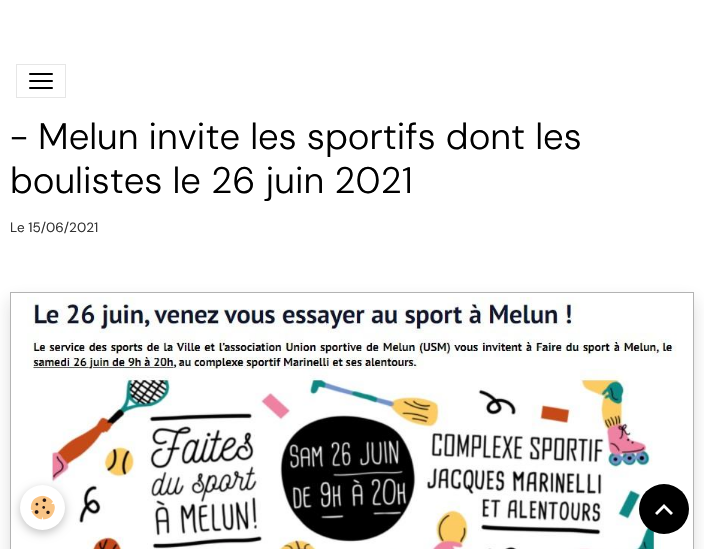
void draw(SkCanvas* canvas) {
	SkPaint paint;
	paint.setAntiAlias(true);
	auto svgPath = [&](const char* data, bool evenOdd = false) {
		SkPath result = *SkParsePath::FromSVGString(data);
		if (evenOdd) result.setFillType(SkPathFillType::kEvenOdd);
		return result;
	};
	canvas->clear(0xffffffff);
	paint.setStroke(true);
	paint.setStrokeWidth(1);
	paint.setColor(0xffe6e6e6);
	canvas->drawRect(SkRect::MakeXYWH(16.5, 64.5, 49, 33), paint);
	paint.setStroke(false);
	paint.setColor(0xff000000);
	canvas->drawRoundRect(SkRect::MakeXYWH(29, 73, 24, 2), 1, 1, paint);
	canvas->drawRoundRect(SkRect::MakeXYWH(29, 80, 24, 2), 1, 1, paint);
	canvas->drawRoundRect(SkRect::MakeXYWH(29, 87, 24, 2), 1, 1, paint);
	SkFont f1(fontMgr->matchFamilyStyle("DM Sans", SkFontStyle(300, SkFontStyle::kNormal_Width, SkFontStyle::kUpright_Slant)), 36.75);
	f1.setSubpixel(true);
	canvas->drawString("- Melun invite les sportifs dont les", 10, 149, f1, paint);
	canvas->drawString("boulistes le 26 juin 2021", 10, 193, f1, paint);
	SkFont f2(fontMgr->matchFamilyStyle("DM Sans", SkFontStyle::Normal()), 13.5);
	f2.setSubpixel(true);
	paint.setColor(0xff333333);
	canvas->drawString("Le 15/06/2021", 10, 232, f2, paint);
	canvas->save();
	canvas->clipPath(svgPath("M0 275H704V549H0ZM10 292H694V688H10Z", true), true);
	paint.setColor(0x261a1a1a);
	paint.setMaskFilter(SkMaskFilter::MakeBlur(kNormal_SkBlurStyle, 8));
	canvas->drawRect(SkRect::MakeXYWH(10, 300, 684, 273), paint);
	paint.setMaskFilter(nullptr);
	canvas->restore();
	paint.setStroke(true);
	paint.setColor(0xffb3b3b3);
	canvas->drawRect(SkRect::MakeXYWH(10.5, 292.5, 683, 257), paint);
	canvas->drawImageRect(SkImages::DeferredFromEncodedData(SkData::MakeFromFileName("img1.png")), SkRect::MakeXYWH(27, 297, 650, 252), SkSamplingOptions());
	paint.setStroke(false);
	paint.setColor(0x3d000000);
	paint.setMaskFilter(SkMaskFilter::MakeBlur(kNormal_SkBlurStyle, 5));
	canvas->drawRoundRect(SkRect::MakeXYWH(20, 488, 45, 45), 22.5, 22.5, paint);
	paint.setMaskFilter(nullptr);
	paint.setColor(0xffffffff);
	canvas->drawCircle(42.5, 507.5, 22.5, paint);
	canvas->drawImageRect(SkImages::DeferredFromEncodedData(SkData::MakeFromFileName("img2.png")), SkRect::MakeXYWH(30, 495, 25, 25), SkSamplingOptions());
	paint.setColor(0xff000000);
	canvas->drawCircle(664, 509, 25, paint);
	paint.setColor(0xffffffff);
	canvas->drawPath(svgPath("M664 504L673 513L671 515L664 508L657 515L655 513Z"), paint);
}
